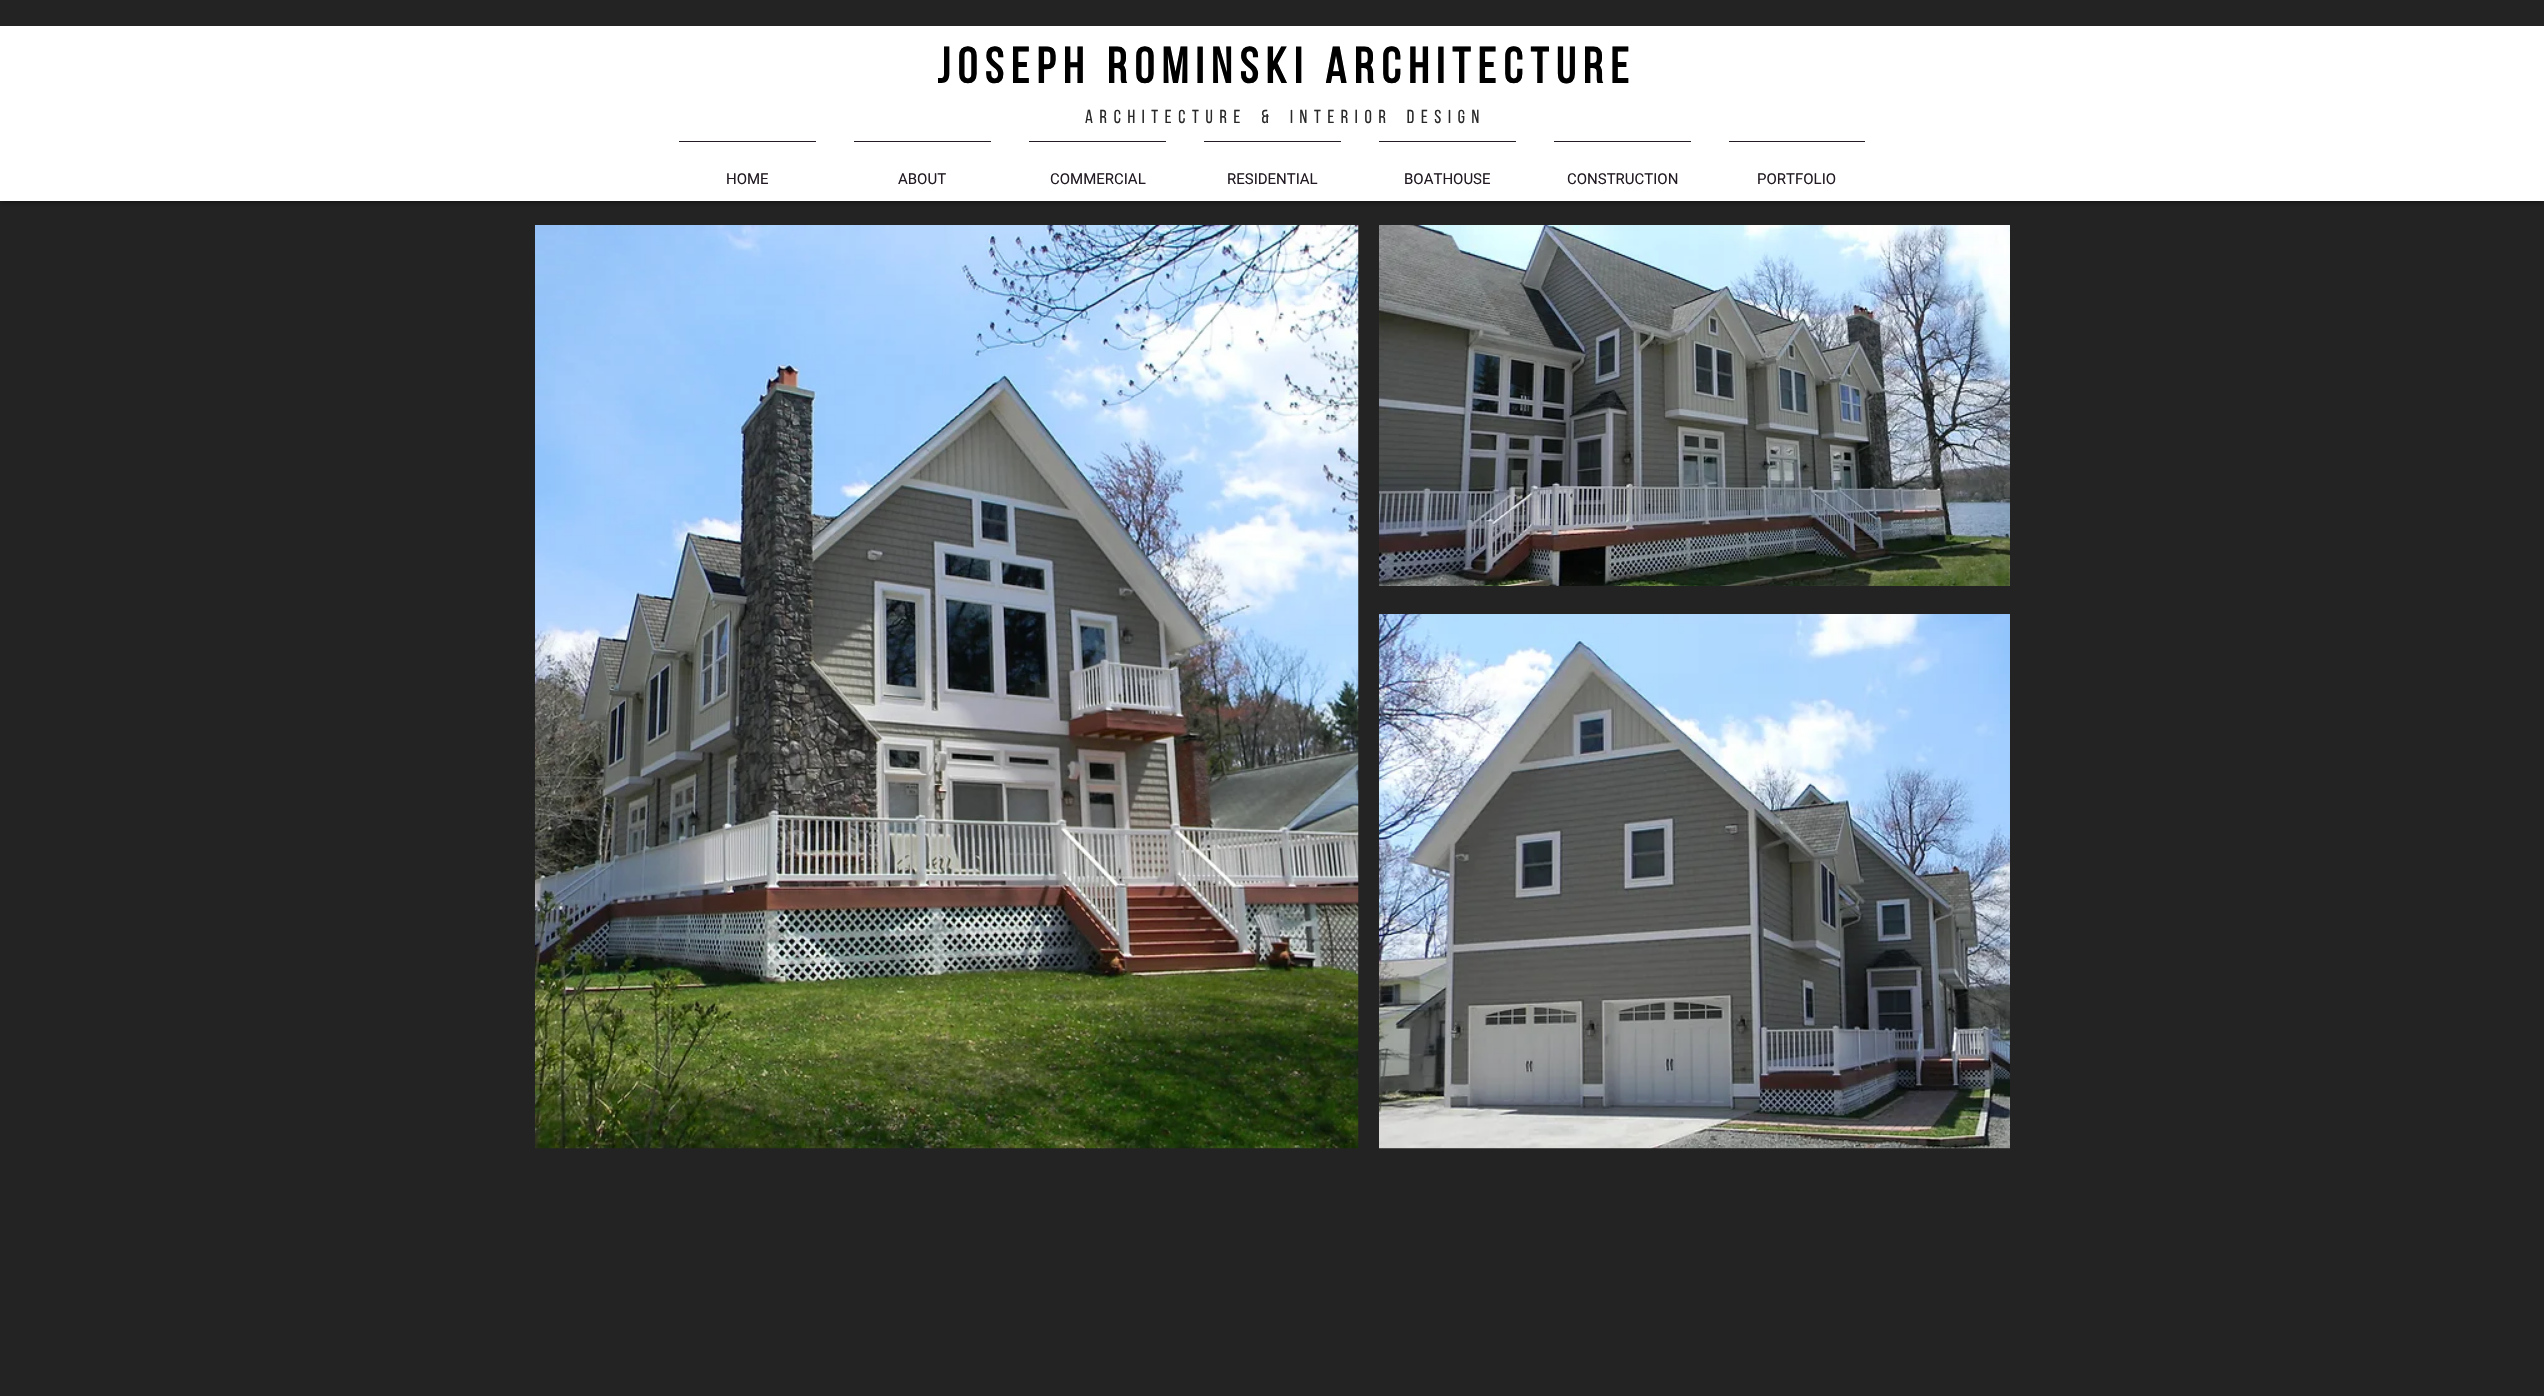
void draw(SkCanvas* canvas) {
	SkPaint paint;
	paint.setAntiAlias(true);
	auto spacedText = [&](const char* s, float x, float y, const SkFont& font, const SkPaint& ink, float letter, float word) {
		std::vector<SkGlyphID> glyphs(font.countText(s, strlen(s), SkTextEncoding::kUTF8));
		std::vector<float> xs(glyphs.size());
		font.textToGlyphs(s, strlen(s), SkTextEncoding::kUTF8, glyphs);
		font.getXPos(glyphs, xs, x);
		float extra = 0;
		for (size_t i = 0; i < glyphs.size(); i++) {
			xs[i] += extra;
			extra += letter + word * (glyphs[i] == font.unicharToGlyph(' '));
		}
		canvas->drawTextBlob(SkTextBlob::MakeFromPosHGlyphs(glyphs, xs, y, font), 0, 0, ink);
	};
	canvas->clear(0xff242323);
	paint.setColor(0xb3000000);
	paint.setMaskFilter(SkMaskFilter::MakeBlur(kNormal_SkBlurStyle, 3));
	canvas->drawRect(SkRect::MakeXYWH(0, 0, 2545, 201), paint);
	paint.setMaskFilter(nullptr);
	paint.setColor(0xffffffff);
	canvas->drawRect(SkRect::MakeXYWH(0, 26, 2544, 175), paint);
	paint.setColor(0xff242323);
	canvas->drawRect(SkRect::MakeXYWH(0, 0, 2544, 26), paint);
	SkFont f1(fontMgr->matchFamilyStyle("Bebas Neue", SkFontStyle::Bold()), 50);
	f1.setSubpixel(true);
	paint.setColor(0xff000000);
	canvas->drawString("J o s e p h", 937, 83, f1, paint);
	canvas->drawString("r o m i n s k i   a r c h i t e c t u r e", 1107, 83, f1, paint);
	SkFont f2(fontMgr->matchFamilyStyle("Bebas Neue", SkFontStyle::Normal()), 18.75);
	f2.setSubpixel(true);
	paint.setColor(0xff292929);
	spacedText("A R C H I T E C T U R E    &    I N T E R I O R    D E S I G N", 1085, 123, f2, paint, 1.88, 0);
	paint.setColor(0xff221b23);
	canvas->drawRect(SkRect::MakeXYWH(679, 141, 137, 1), paint);
	SkFont f3(fontMgr->matchFamilyStyle("Roboto", SkFontStyle::Normal()), 15);
	f3.setSubpixel(true);
	canvas->drawString("HOME", 726, 184, f3, paint);
	canvas->drawRect(SkRect::MakeXYWH(854, 141, 137, 1), paint);
	canvas->drawString("ABOUT", 898, 184, f3, paint);
	canvas->drawRect(SkRect::MakeXYWH(1029, 141, 137, 1), paint);
	canvas->drawString("COMMERCIAL", 1050, 184, f3, paint);
	canvas->drawRect(SkRect::MakeXYWH(1204, 141, 137, 1), paint);
	canvas->drawString("RESIDENTIAL", 1227, 184, f3, paint);
	canvas->drawRect(SkRect::MakeXYWH(1379, 141, 137, 1), paint);
	canvas->drawString("BOATHOUSE", 1404, 184, f3, paint);
	canvas->drawRect(SkRect::MakeXYWH(1554, 141, 137, 1), paint);
	canvas->drawString("CONSTRUCTION", 1567, 184, f3, paint);
	canvas->drawRect(SkRect::MakeXYWH(1729, 141, 136, 1), paint);
	canvas->drawString("PORTFOLIO", 1757, 184, f3, paint);
	canvas->drawImageRect(SkImages::DeferredFromEncodedData(SkData::MakeFromFileName("img1.png")), SkRect::MakeXYWH(535, 225, 824, 924), SkSamplingOptions());
	canvas->drawImageRect(SkImages::DeferredFromEncodedData(SkData::MakeFromFileName("img2.png")), SkRect::MakeXYWH(1379, 225, 631, 361), SkSamplingOptions());
	canvas->drawImageRect(SkImages::DeferredFromEncodedData(SkData::MakeFromFileName("img3.png")), SkRect::MakeXYWH(1379, 614, 631, 535), SkSamplingOptions());
}
